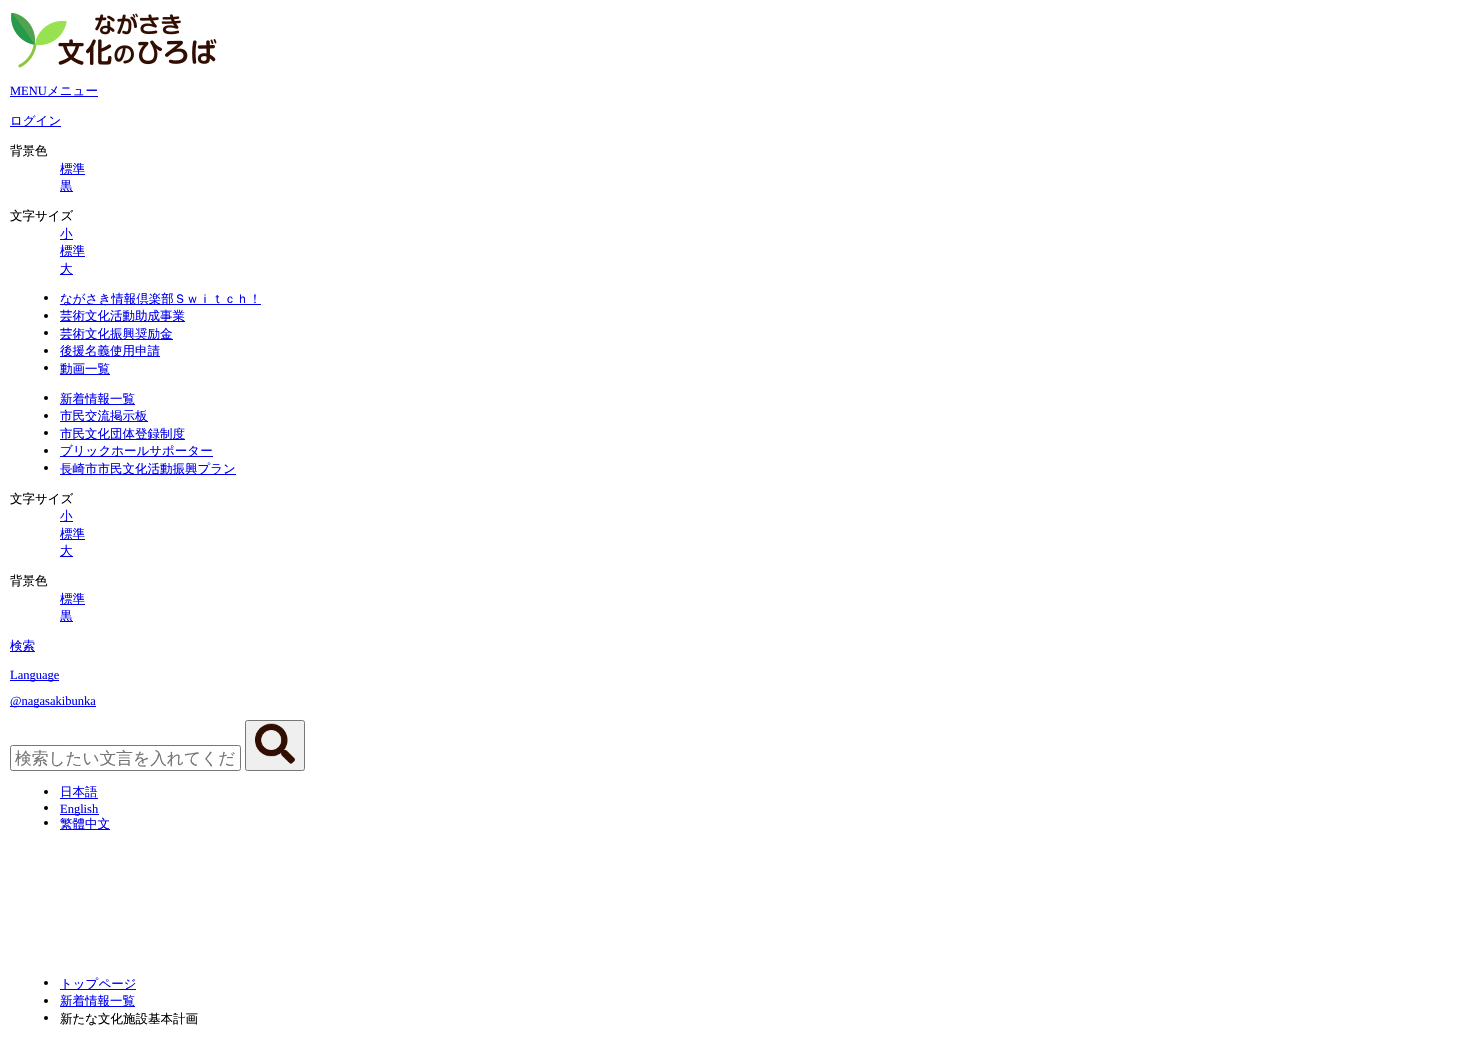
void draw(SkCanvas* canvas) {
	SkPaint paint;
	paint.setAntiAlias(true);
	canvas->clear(0xffffffff);
	canvas->drawImageRect(SkImages::DeferredFromEncodedData(SkData::MakeFromFileName("img1.png")), SkRect::MakeXYWH(11, 13, 206, 55), SkSamplingOptions());
	SkFont f1(fontMgr->matchFamilyStyle("Liberation Serif", SkFontStyle::Normal()), 12.5);
	f1.setSubpixel(true);
	paint.setColor(0xff0000ee);
	canvas->drawString("MENU", 10, 95, f1, paint);
	canvas->drawRect(SkRect::MakeXYWH(10, 96, 88, 1), paint);
	SkFont f2(fontMgr->matchFamilyStyle("WenQuanYi Zen Hei", SkFontStyle(500, SkFontStyle::kNormal_Width, SkFontStyle::kUpright_Slant)), 12.5);
	f2.setSubpixel(true);
	canvas->drawString("メニュー", 47, 95, f2, paint);
	canvas->drawRect(SkRect::MakeXYWH(10, 126, 51, 1), paint);
	canvas->drawString("ログイン", 10, 125, f2, paint);
	paint.setColor(0xff000000);
	canvas->drawString("背景色", 10, 155, f2, paint);
	paint.setColor(0xff0000ee);
	canvas->drawRect(SkRect::MakeXYWH(60, 174, 25, 1), paint);
	canvas->drawString("標準", 60, 173, f2, paint);
	canvas->drawRect(SkRect::MakeXYWH(60, 191, 13, 1), paint);
	canvas->drawString("黒", 60, 190, f2, paint);
	paint.setColor(0xff000000);
	canvas->drawString("文字サイズ", 10, 220, f2, paint);
	paint.setColor(0xff0000ee);
	canvas->drawRect(SkRect::MakeXYWH(60, 239, 13, 1), paint);
	canvas->drawString("小", 60, 238, f2, paint);
	canvas->drawRect(SkRect::MakeXYWH(60, 256, 25, 1), paint);
	canvas->drawString("標準", 60, 255, f2, paint);
	canvas->drawRect(SkRect::MakeXYWH(60, 274, 13, 1), paint);
	canvas->drawString("大", 60, 273, f2, paint);
	paint.setColor(0xff000000);
	canvas->drawCircle(46, 298, 2, paint);
	paint.setColor(0xff0000ee);
	canvas->drawRect(SkRect::MakeXYWH(60, 304, 201, 1), paint);
	canvas->drawString("ながさき情報倶楽部Ｓｗｉｔｃｈ！", 60, 303, f2, paint);
	paint.setColor(0xff000000);
	canvas->drawCircle(46, 316, 2, paint);
	paint.setColor(0xff0000ee);
	canvas->drawRect(SkRect::MakeXYWH(60, 321, 125, 1), paint);
	canvas->drawString("芸術文化活動助成事業", 60, 320, f2, paint);
	paint.setColor(0xff000000);
	canvas->drawCircle(46, 333, 2, paint);
	paint.setColor(0xff0000ee);
	canvas->drawRect(SkRect::MakeXYWH(60, 339, 113, 1), paint);
	canvas->drawString("芸術文化振興奨励金", 60, 338, f2, paint);
	paint.setColor(0xff000000);
	canvas->drawCircle(46, 351, 2, paint);
	paint.setColor(0xff0000ee);
	canvas->drawRect(SkRect::MakeXYWH(60, 356, 100, 1), paint);
	canvas->drawString("後援名義使用申請", 60, 355, f2, paint);
	paint.setColor(0xff000000);
	canvas->drawCircle(46, 368, 2, paint);
	paint.setColor(0xff0000ee);
	canvas->drawRect(SkRect::MakeXYWH(60, 374, 50, 1), paint);
	canvas->drawString("動画一覧", 60, 373, f2, paint);
	paint.setColor(0xff000000);
	canvas->drawCircle(46, 398, 2, paint);
	paint.setColor(0xff0000ee);
	canvas->drawRect(SkRect::MakeXYWH(60, 404, 75, 1), paint);
	canvas->drawString("新着情報一覧", 60, 403, f2, paint);
	paint.setColor(0xff000000);
	canvas->drawCircle(46, 416, 2, paint);
	paint.setColor(0xff0000ee);
	canvas->drawRect(SkRect::MakeXYWH(60, 421, 88, 1), paint);
	canvas->drawString("市民交流掲示板", 60, 420, f2, paint);
	paint.setColor(0xff000000);
	canvas->drawCircle(46, 433, 2, paint);
	paint.setColor(0xff0000ee);
	canvas->drawRect(SkRect::MakeXYWH(60, 439, 125, 1), paint);
	canvas->drawString("市民文化団体登録制度", 60, 438, f2, paint);
	paint.setColor(0xff000000);
	canvas->drawCircle(46, 451, 2, paint);
	paint.setColor(0xff0000ee);
	canvas->drawRect(SkRect::MakeXYWH(60, 456, 153, 1), paint);
	canvas->drawString("ブリックホールサポーター", 60, 455, f2, paint);
	paint.setColor(0xff000000);
	canvas->drawCircle(46, 468, 2, paint);
	paint.setColor(0xff0000ee);
	canvas->drawRect(SkRect::MakeXYWH(60, 474, 176, 1), paint);
	canvas->drawString("長崎市市民文化活動振興プラン", 60, 473, f2, paint);
	paint.setColor(0xff000000);
	canvas->drawString("文字サイズ", 10, 503, f2, paint);
	paint.setColor(0xff0000ee);
	canvas->drawRect(SkRect::MakeXYWH(60, 521, 13, 1), paint);
	canvas->drawString("小", 60, 520, f2, paint);
	canvas->drawRect(SkRect::MakeXYWH(60, 539, 25, 1), paint);
	canvas->drawString("標準", 60, 538, f2, paint);
	canvas->drawRect(SkRect::MakeXYWH(60, 556, 13, 1), paint);
	canvas->drawString("大", 60, 555, f2, paint);
	paint.setColor(0xff000000);
	canvas->drawString("背景色", 10, 585, f2, paint);
	paint.setColor(0xff0000ee);
	canvas->drawRect(SkRect::MakeXYWH(60, 604, 25, 1), paint);
	canvas->drawString("標準", 60, 603, f2, paint);
	canvas->drawRect(SkRect::MakeXYWH(60, 621, 13, 1), paint);
	canvas->drawString("黒", 60, 620, f2, paint);
	canvas->drawRect(SkRect::MakeXYWH(10, 651, 25, 1), paint);
	canvas->drawString("検索", 10, 650, f2, paint);
	canvas->drawRect(SkRect::MakeXYWH(10, 680, 49, 1), paint);
	canvas->drawString("Language", 10, 679, f1, paint);
	canvas->drawRect(SkRect::MakeXYWH(10, 706, 86, 1), paint);
	canvas->drawString("@nagasakibunka", 10, 705, f1, paint);
	paint.setStroke(true);
	paint.setStrokeWidth(1);
	paint.setColor(0xff767676);
	canvas->drawRoundRect(SkRect::MakeXYWH(10.5, 745.5, 230, 25), 2, 2, paint);
	SkFont f3(fontMgr->matchFamilyStyle("WenQuanYi Zen Hei", SkFontStyle(500, SkFontStyle::kNormal_Width, SkFontStyle::kUpright_Slant)), 16.7);
	f3.setSubpixel(true);
	paint.setStroke(false);
	paint.setColor(0xff757575);
	canvas->drawString("検索したい文言を入れてくだ", 15, 764, f3, paint);
	paint.setColor(0xffefefef);
	canvas->drawRoundRect(SkRect::MakeXYWH(245.5, 720.5, 59, 50), 2, 2, paint);
	paint.setStroke(true);
	paint.setColor(0xff767676);
	canvas->drawRoundRect(SkRect::MakeXYWH(245.5, 720.5, 59, 50), 2, 2, paint);
	canvas->drawImageRect(SkImages::DeferredFromEncodedData(SkData::MakeFromFileName("img2.png")), SkRect::MakeXYWH(255, 723, 40, 41), SkSamplingOptions());
	paint.setStroke(false);
	paint.setColor(0xff000000);
	canvas->drawCircle(46, 792, 2, paint);
	paint.setColor(0xff0000ee);
	canvas->drawString("日本語", 60, 796, f2, paint);
	canvas->drawRect(SkRect::MakeXYWH(60, 798, 38, 1), paint);
	paint.setColor(0xff000000);
	canvas->drawCircle(46, 808, 2, paint);
	paint.setColor(0xff0000ee);
	canvas->drawRect(SkRect::MakeXYWH(60, 814, 39, 1), paint);
	canvas->drawString("English", 60, 813, f1, paint);
	paint.setColor(0xff000000);
	canvas->drawCircle(46, 823, 2, paint);
	paint.setColor(0xff0000ee);
	canvas->drawRect(SkRect::MakeXYWH(60, 829, 50, 1), paint);
	canvas->drawString("繁體中文", 60, 828, f2, paint);
	paint.setColor(0xff000000);
	canvas->drawCircle(46, 983, 2, paint);
	paint.setColor(0xff0000ee);
	canvas->drawRect(SkRect::MakeXYWH(60, 989, 76, 1), paint);
	canvas->drawString("トップページ", 60, 988, f2, paint);
	paint.setColor(0xff000000);
	canvas->drawCircle(46, 1001, 2, paint);
	paint.setColor(0xff0000ee);
	canvas->drawRect(SkRect::MakeXYWH(60, 1006, 75, 1), paint);
	canvas->drawString("新着情報一覧", 60, 1005, f2, paint);
	paint.setColor(0xff000000);
	canvas->drawCircle(46, 1018, 2, paint);
	canvas->drawString("新たな文化施設基本計画", 60, 1023, f2, paint);
}
